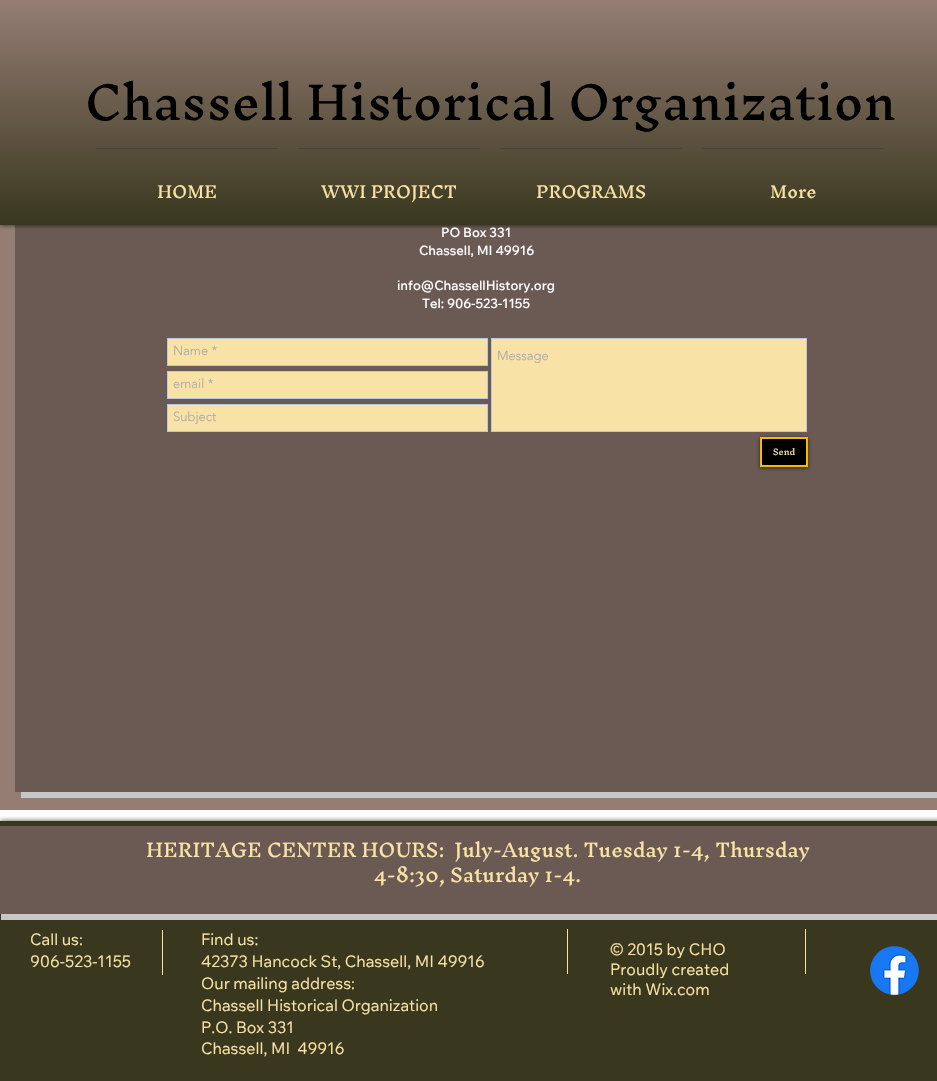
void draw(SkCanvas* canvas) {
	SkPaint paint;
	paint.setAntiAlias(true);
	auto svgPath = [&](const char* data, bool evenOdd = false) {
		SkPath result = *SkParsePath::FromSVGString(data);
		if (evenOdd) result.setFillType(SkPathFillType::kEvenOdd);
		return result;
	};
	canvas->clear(0xffffffff);
	paint.setColor(0xff957d74);
	canvas->drawRect(SkRect::MakeXYWH(0, 225, 937, 585), paint);
	paint.setColor(0xff6b5a54);
	canvas->drawRect(SkRect::MakeXYWH(15, 225, 922, 567), paint);
	paint.setColor(0xb3000000);
	paint.setMaskFilter(SkMaskFilter::MakeBlur(kNormal_SkBlurStyle, 2.5));
	canvas->drawRect(SkRect::MakeXYWH(0, 0, 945, 225), paint);
	paint.setMaskFilter(nullptr);
	{
		const SkColor colors[] = {0xff39371e, 0xff957d74};
		const float stops[] = {0, 1};
		const SkPoint ends[] = {{490, 225}, {490, 0}};
		paint.setShader(SkGradientShader::MakeLinear(ends, colors, stops, 2, SkTileMode::kClamp));
		paint.setAlpha(255);
	}
	canvas->drawRect(SkRect::MakeXYWH(0, 0, 937, 225), paint);
	SkFont f1(fontMgr->matchFamilyStyle("Inknut Antiqua", SkFontStyle::Normal()), 45);
	f1.setSubpixel(true);
	paint.setShader(nullptr);
	paint.setColor(0xff000000);
	canvas->drawString("Chassell Historical Organization", 85, 120, f1, paint);
	paint.setColor(0xff464440);
	canvas->drawRect(SkRect::MakeXYWH(96, 148, 182, 1), paint);
	SkFont f2(fontMgr->matchFamilyStyle("Inknut Antiqua", SkFontStyle::Normal()), 16);
	f2.setSubpixel(true);
	paint.setColor(0xfff9e2a6);
	canvas->drawString("HOME", 157, 198, f2, paint);
	paint.setColor(0xff464440);
	canvas->drawRect(SkRect::MakeXYWH(298, 148, 182, 1), paint);
	paint.setColor(0xfff9e2a6);
	canvas->drawString("WWI PROJECT", 321, 198, f2, paint);
	paint.setColor(0xff464440);
	canvas->drawRect(SkRect::MakeXYWH(500, 148, 182, 1), paint);
	paint.setColor(0xfff9e2a6);
	canvas->drawString("PROGRAMS", 536, 198, f2, paint);
	paint.setColor(0xff464440);
	canvas->drawRect(SkRect::MakeXYWH(702, 148, 182, 1), paint);
	paint.setColor(0xfff9e2a6);
	canvas->drawString("More", 770, 198, f2, paint);
	paint.setColor(0xffc7c7c7);
	canvas->drawPath(svgPath("M21 792V798H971V85H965V792Z"), paint);
	SkFont f3(fontMgr->matchFamilyStyle("Wix Madefor Text", SkFontStyle(500, SkFontStyle::kNormal_Width, SkFontStyle::kUpright_Slant)), 13);
	f3.setSubpixel(true);
	paint.setColor(0xffffffff);
	canvas->drawString("PO Box 331", 441, 237, f3, paint);
	canvas->drawString("Chassell, MI 49916", 419, 255, f3, paint);
	canvas->drawString("info@ChassellHistory.org", 397, 290, f3, paint);
	canvas->drawString("Tel: 906-523-1155", 422, 308, f3, paint);
	paint.setColor(0xfff9e2a6);
	canvas->drawRect(SkRect::MakeXYWH(167.5, 338.5, 320, 27), paint);
	paint.setStroke(true);
	paint.setStrokeWidth(1);
	paint.setColor(0xffbcc8d9);
	canvas->drawRect(SkRect::MakeXYWH(167.5, 338.5, 320, 27), paint);
	SkFont f4(fontMgr->matchFamilyStyle("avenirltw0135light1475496", SkFontStyle(300, SkFontStyle::kNormal_Width, SkFontStyle::kUpright_Slant)), 13);
	f4.setSubpixel(true);
	paint.setStroke(false);
	paint.setColor(0xffa9a9a9);
	canvas->drawString("Name *", 173, 355, f4, paint);
	paint.setColor(0xfff9e2a6);
	canvas->drawRect(SkRect::MakeXYWH(491.5, 338.5, 315, 93), paint);
	paint.setStroke(true);
	paint.setColor(0xffbcc8d9);
	canvas->drawRect(SkRect::MakeXYWH(491.5, 338.5, 315, 93), paint);
	paint.setStroke(false);
	paint.setColor(0xffa9a9a9);
	canvas->drawString("Message", 497, 360, f4, paint);
	paint.setColor(0xfff9e2a6);
	canvas->drawRect(SkRect::MakeXYWH(167.5, 371.5, 320, 27), paint);
	paint.setStroke(true);
	paint.setColor(0xffbcc8d9);
	canvas->drawRect(SkRect::MakeXYWH(167.5, 371.5, 320, 27), paint);
	paint.setStroke(false);
	paint.setColor(0xffa9a9a9);
	canvas->drawString("email *", 173, 388, f4, paint);
	paint.setColor(0xfff9e2a6);
	canvas->drawRect(SkRect::MakeXYWH(167.5, 404.5, 320, 27), paint);
	paint.setStroke(true);
	paint.setColor(0xffbcc8d9);
	canvas->drawRect(SkRect::MakeXYWH(167.5, 404.5, 320, 27), paint);
	paint.setStroke(false);
	paint.setColor(0xffa9a9a9);
	canvas->drawString("Subject", 173, 421, f4, paint);
	paint.setColor(0x99000000);
	paint.setMaskFilter(SkMaskFilter::MakeBlur(kNormal_SkBlurStyle, 2));
	canvas->drawRect(SkRect::MakeXYWH(760, 438, 48, 30), paint);
	paint.setMaskFilter(nullptr);
	paint.setColor(0xff000000);
	canvas->drawRect(SkRect::MakeXYWH(761, 438, 46, 28), paint);
	paint.setStroke(true);
	paint.setStrokeWidth(2);
	paint.setColor(0xfff7b800);
	canvas->drawRect(SkRect::MakeXYWH(761, 438, 46, 28), paint);
	SkFont f5(fontMgr->matchFamilyStyle("Inknut Antiqua", SkFontStyle::Normal()), 8);
	f5.setSubpixel(true);
	paint.setStroke(false);
	paint.setColor(0xfff9e2a6);
	canvas->drawString("Send", 773, 455, f5, paint);
	paint.setColor(0xb3000000);
	paint.setMaskFilter(SkMaskFilter::MakeBlur(kNormal_SkBlurStyle, 2.5));
	canvas->drawRect(SkRect::MakeXYWH(0, 821, 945, 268), paint);
	paint.setMaskFilter(nullptr);
	paint.setColor(0xff39371e);
	canvas->drawRect(SkRect::MakeXYWH(0, 821, 937, 260), paint);
	paint.setColor(0xffc7c7c7);
	canvas->drawPath(svgPath("M1 914V920H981V832H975V914Z"), paint);
	paint.setColor(0xff6b5a54);
	canvas->drawRect(SkRect::MakeXYWH(0, 826, 937, 88), paint);
	SkFont f6(fontMgr->matchFamilyStyle("Inknut Antiqua", SkFontStyle::Normal()), 18);
	f6.setSubpixel(true);
	paint.setColor(0xfff9e2a6);
	canvas->drawString("HERITAGE CENTER HOURS:  July-August. Tuesday 1-4, Thursday", 146, 857, f6, paint);
	canvas->drawString("4-8:30, Saturday 1-4.", 374, 882, f6, paint);
	SkFont f7(fontMgr->matchFamilyStyle("Wix Madefor Text", SkFontStyle::Normal()), 16);
	f7.setSubpixel(true);
	canvas->drawString("Call us:", 30, 945, f7, paint);
	canvas->drawString("906-523-1155", 30, 967, f7, paint);
	canvas->drawRect(SkRect::MakeXYWH(162, 930, 1, 45), paint);
	canvas->drawString("Find us:", 201, 945, f7, paint);
	canvas->drawString("42373 Hancock St, Chassell, MI 49916", 201, 967, f7, paint);
	canvas->drawString("Our mailing address:", 201, 989, f7, paint);
	canvas->drawString("Chassell Historical Organization", 201, 1011, f7, paint);
	canvas->drawString("P.O. Box 331", 201, 1033, f7, paint);
	canvas->drawString("Chassell, MI  49916", 201, 1054, f7, paint);
	canvas->drawRect(SkRect::MakeXYWH(567, 929, 1, 45), paint);
	canvas->drawString("© 2015 by CHO", 610, 955, f7, paint);
	canvas->drawString("Proudly created", 610, 975, f7, paint);
	canvas->drawString("with Wix.com", 610, 995, f7, paint);
	canvas->drawRect(SkRect::MakeXYWH(805, 929, 1, 45), paint);
	canvas->drawImageRect(SkImages::DeferredFromEncodedData(SkData::MakeFromFileName("img1.png")), SkRect::MakeXYWH(870, 946, 49, 49), SkSamplingOptions());
}
